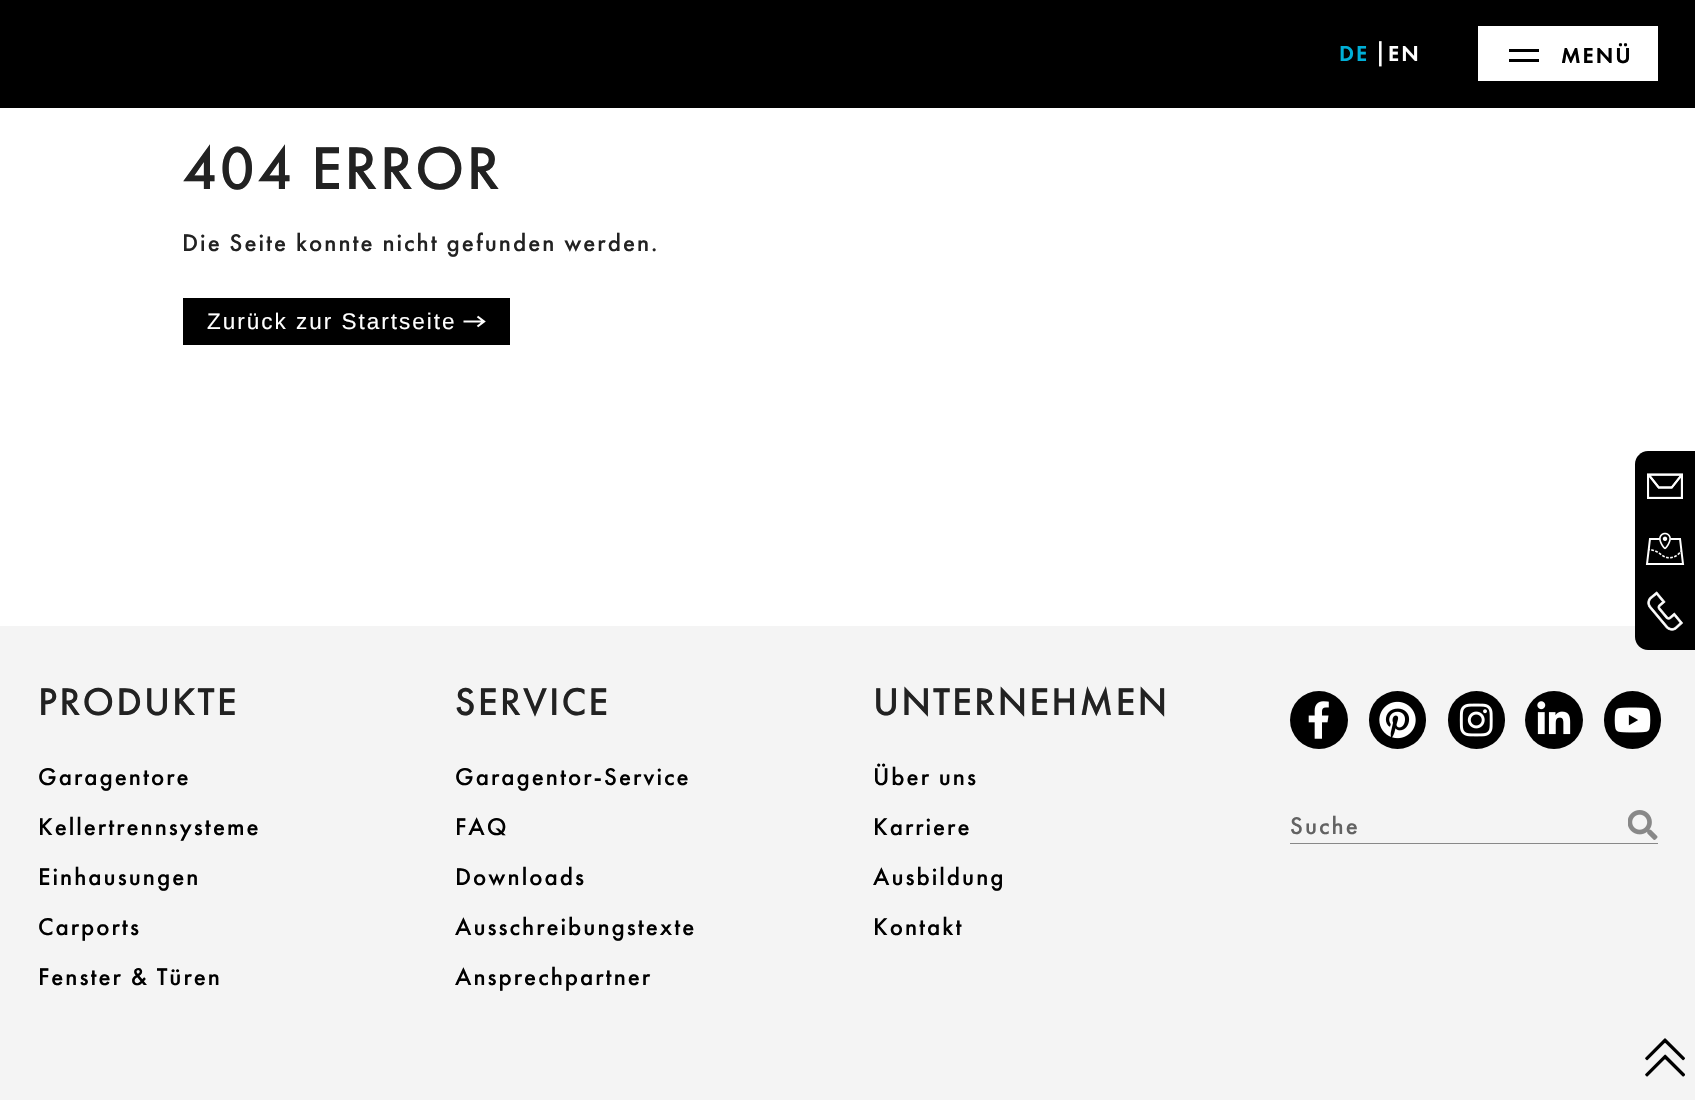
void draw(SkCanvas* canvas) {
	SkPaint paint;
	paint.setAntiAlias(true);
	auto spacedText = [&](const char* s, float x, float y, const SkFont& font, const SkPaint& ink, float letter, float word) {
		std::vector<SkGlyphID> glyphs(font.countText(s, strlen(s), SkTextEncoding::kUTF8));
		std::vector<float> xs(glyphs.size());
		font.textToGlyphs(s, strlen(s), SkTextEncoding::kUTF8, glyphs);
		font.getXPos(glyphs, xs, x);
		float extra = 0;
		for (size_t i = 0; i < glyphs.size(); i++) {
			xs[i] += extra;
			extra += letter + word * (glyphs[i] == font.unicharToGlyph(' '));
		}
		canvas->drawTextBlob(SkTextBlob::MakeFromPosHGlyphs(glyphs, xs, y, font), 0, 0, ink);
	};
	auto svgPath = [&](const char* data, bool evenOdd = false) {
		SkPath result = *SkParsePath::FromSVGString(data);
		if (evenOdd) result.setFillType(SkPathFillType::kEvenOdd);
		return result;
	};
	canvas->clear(0xffffffff);
	paint.setColor(0xff000000);
	canvas->drawRect(SkRect::MakeXYWH(0, 0, 1695, 108), paint);
	SkFont f1(fontMgr->matchFamilyStyle("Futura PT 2", SkFontStyle(500, SkFontStyle::kNormal_Width, SkFontStyle::kUpright_Slant)), 22.5);
	f1.setSubpixel(true);
	paint.setColor(0xff00afd7);
	spacedText("DE", 1339, 61, f1, paint, 2, 0);
	SkFont f2(fontMgr->matchFamilyStyle("Futura PT", SkFontStyle(500, SkFontStyle::kNormal_Width, SkFontStyle::kUpright_Slant)), 25);
	f2.setSubpixel(true);
	paint.setColor(0xffffffff);
	spacedText("|", 1374, 60, f2, paint, 2, 0);
	spacedText("EN", 1388, 61, f1, paint, 2, 0);
	canvas->drawRect(SkRect::MakeXYWH(1478, 26, 180, 55), paint);
	paint.setColor(0xff000000);
	canvas->drawRect(SkRect::MakeXYWH(1509, 49, 30, 3), paint);
	canvas->drawRect(SkRect::MakeXYWH(1509, 59, 30, 3), paint);
	spacedText("MENÜ", 1561, 63, f1, paint, 2, 0);
	SkFont f3(fontMgr->matchFamilyStyle("Futura PT", SkFontStyle(500, SkFontStyle::kNormal_Width, SkFontStyle::kUpright_Slant)), 62.5);
	f3.setSubpixel(true);
	paint.setColor(0xff222222);
	spacedText("404 ERROR", 182, 189, f3, paint, 2, 0);
	spacedText("Die Seite konnte nicht gefunden werden.", 182, 251, f2, paint, 2, 0);
	paint.setColor(0xff000000);
	canvas->drawRect(SkRect::MakeXYWH(183, 298, 327, 47), paint);
	SkFont f4(fontMgr->matchFamilyStyle("Liberation Sans", SkFontStyle::Normal()), 22.5);
	f4.setSubpixel(true);
	paint.setColor(0xffffffff);
	spacedText("Zurück zur Startseite", 207, 329, f4, paint, 2, 0);
	paint.setStroke(true);
	paint.setStrokeWidth(2.2);
	canvas->drawPath(svgPath("M477.5 326.5L484 321.5L477.5 316.5M484 321.5H463.5"), paint);
	paint.setStroke(false);
	paint.setColor(0xfff4f4f4);
	canvas->drawRect(SkRect::MakeXYWH(0, 626, 1695, 474), paint);
	paint.setColor(0xff000000);
	canvas->drawPath(svgPath("M1648 451H1695V650H1648C1641 650 1635 644 1635 637V464C1635 457 1641 451 1648 451Z"), paint);
	canvas->drawImageRect(SkImages::DeferredFromEncodedData(SkData::MakeFromFileName("img1.png")), SkRect::MakeXYWH(1647, 473, 36, 26), SkSamplingOptions());
	canvas->drawImageRect(SkImages::DeferredFromEncodedData(SkData::MakeFromFileName("img2.png")), SkRect::MakeXYWH(1645, 532, 40, 33), SkSamplingOptions());
	canvas->drawImageRect(SkImages::DeferredFromEncodedData(SkData::MakeFromFileName("img3.png")), SkRect::MakeXYWH(1647, 591, 36, 40), SkSamplingOptions());
	SkFont f5(fontMgr->matchFamilyStyle("Futura PT", SkFontStyle(500, SkFontStyle::kNormal_Width, SkFontStyle::kUpright_Slant)), 40);
	f5.setSubpixel(true);
	paint.setColor(0xff222222);
	spacedText("PRODUKTE", 38, 715, f5, paint, 2, 0);
	paint.setColor(0xff000000);
	spacedText("Garagentore", 38, 785, f2, paint, 2, 0);
	spacedText("Kellertrennsysteme", 38, 835, f2, paint, 2, 0);
	spacedText("Einhausungen", 38, 885, f2, paint, 2, 0);
	spacedText("Carports", 38, 935, f2, paint, 2, 0);
	spacedText("Fenster & Türen", 38, 985, f2, paint, 2, 0);
	paint.setColor(0xff222222);
	spacedText("SERVICE", 455, 715, f5, paint, 2, 0);
	paint.setColor(0xff000000);
	spacedText("Garagentor-Service", 455, 785, f2, paint, 2, 0);
	spacedText("FAQ", 455, 835, f2, paint, 2, 0);
	spacedText("Downloads", 455, 885, f2, paint, 2, 0);
	spacedText("Ausschreibungstexte", 455, 935, f2, paint, 2, 0);
	spacedText("Ansprechpartner", 455, 985, f2, paint, 2, 0);
	paint.setColor(0xff222222);
	spacedText("UNTERNEHMEN", 873, 715, f5, paint, 2, 0);
	paint.setColor(0xff000000);
	spacedText("Über uns", 873, 785, f2, paint, 2, 0);
	spacedText("Karriere", 873, 835, f2, paint, 2, 0);
	spacedText("Ausbildung", 873, 885, f2, paint, 2, 0);
	spacedText("Kontakt", 873, 935, f2, paint, 2, 0);
	canvas->drawCircle(1319, 720, 29, paint);
	canvas->drawImageRect(SkImages::DeferredFromEncodedData(SkData::MakeFromFileName("img4.png")), SkRect::MakeXYWH(1308, 701, 21, 38), SkSamplingOptions());
	canvas->drawRoundRect(SkRect::MakeXYWH(1369, 691, 57, 58), 28.5, 28.5, paint);
	canvas->drawImageRect(SkImages::DeferredFromEncodedData(SkData::MakeFromFileName("img5.png")), SkRect::MakeXYWH(1379, 701, 37, 38), SkSamplingOptions());
	canvas->drawRoundRect(SkRect::MakeXYWH(1448, 691, 57, 58), 28.5, 28.5, paint);
	canvas->drawImageRect(SkImages::DeferredFromEncodedData(SkData::MakeFromFileName("img6.png")), SkRect::MakeXYWH(1459, 703, 34, 34), SkSamplingOptions());
	canvas->drawCircle(1554, 720, 29, paint);
	canvas->drawImageRect(SkImages::DeferredFromEncodedData(SkData::MakeFromFileName("img7.png")), SkRect::MakeXYWH(1537, 701, 34, 34), SkSamplingOptions());
	canvas->drawRoundRect(SkRect::MakeXYWH(1604, 691, 57, 58), 28.5, 28.5, paint);
	canvas->drawImageRect(SkImages::DeferredFromEncodedData(SkData::MakeFromFileName("img8.png")), SkRect::MakeXYWH(1614, 707, 37, 26), SkSamplingOptions());
	paint.setColor(0xff888888);
	canvas->drawRect(SkRect::MakeXYWH(1290, 843, 368, 1), paint);
	paint.setColor(0xff626262);
	spacedText("Suche", 1290, 834, f2, paint, 2, 0);
	canvas->drawImageRect(SkImages::DeferredFromEncodedData(SkData::MakeFromFileName("img9.png")), SkRect::MakeXYWH(1628, 810, 30, 30), SkSamplingOptions());
	canvas->drawImageRect(SkImages::DeferredFromEncodedData(SkData::MakeFromFileName("img10.png")), SkRect::MakeXYWH(1645, 1038, 40, 39), SkSamplingOptions());
}
